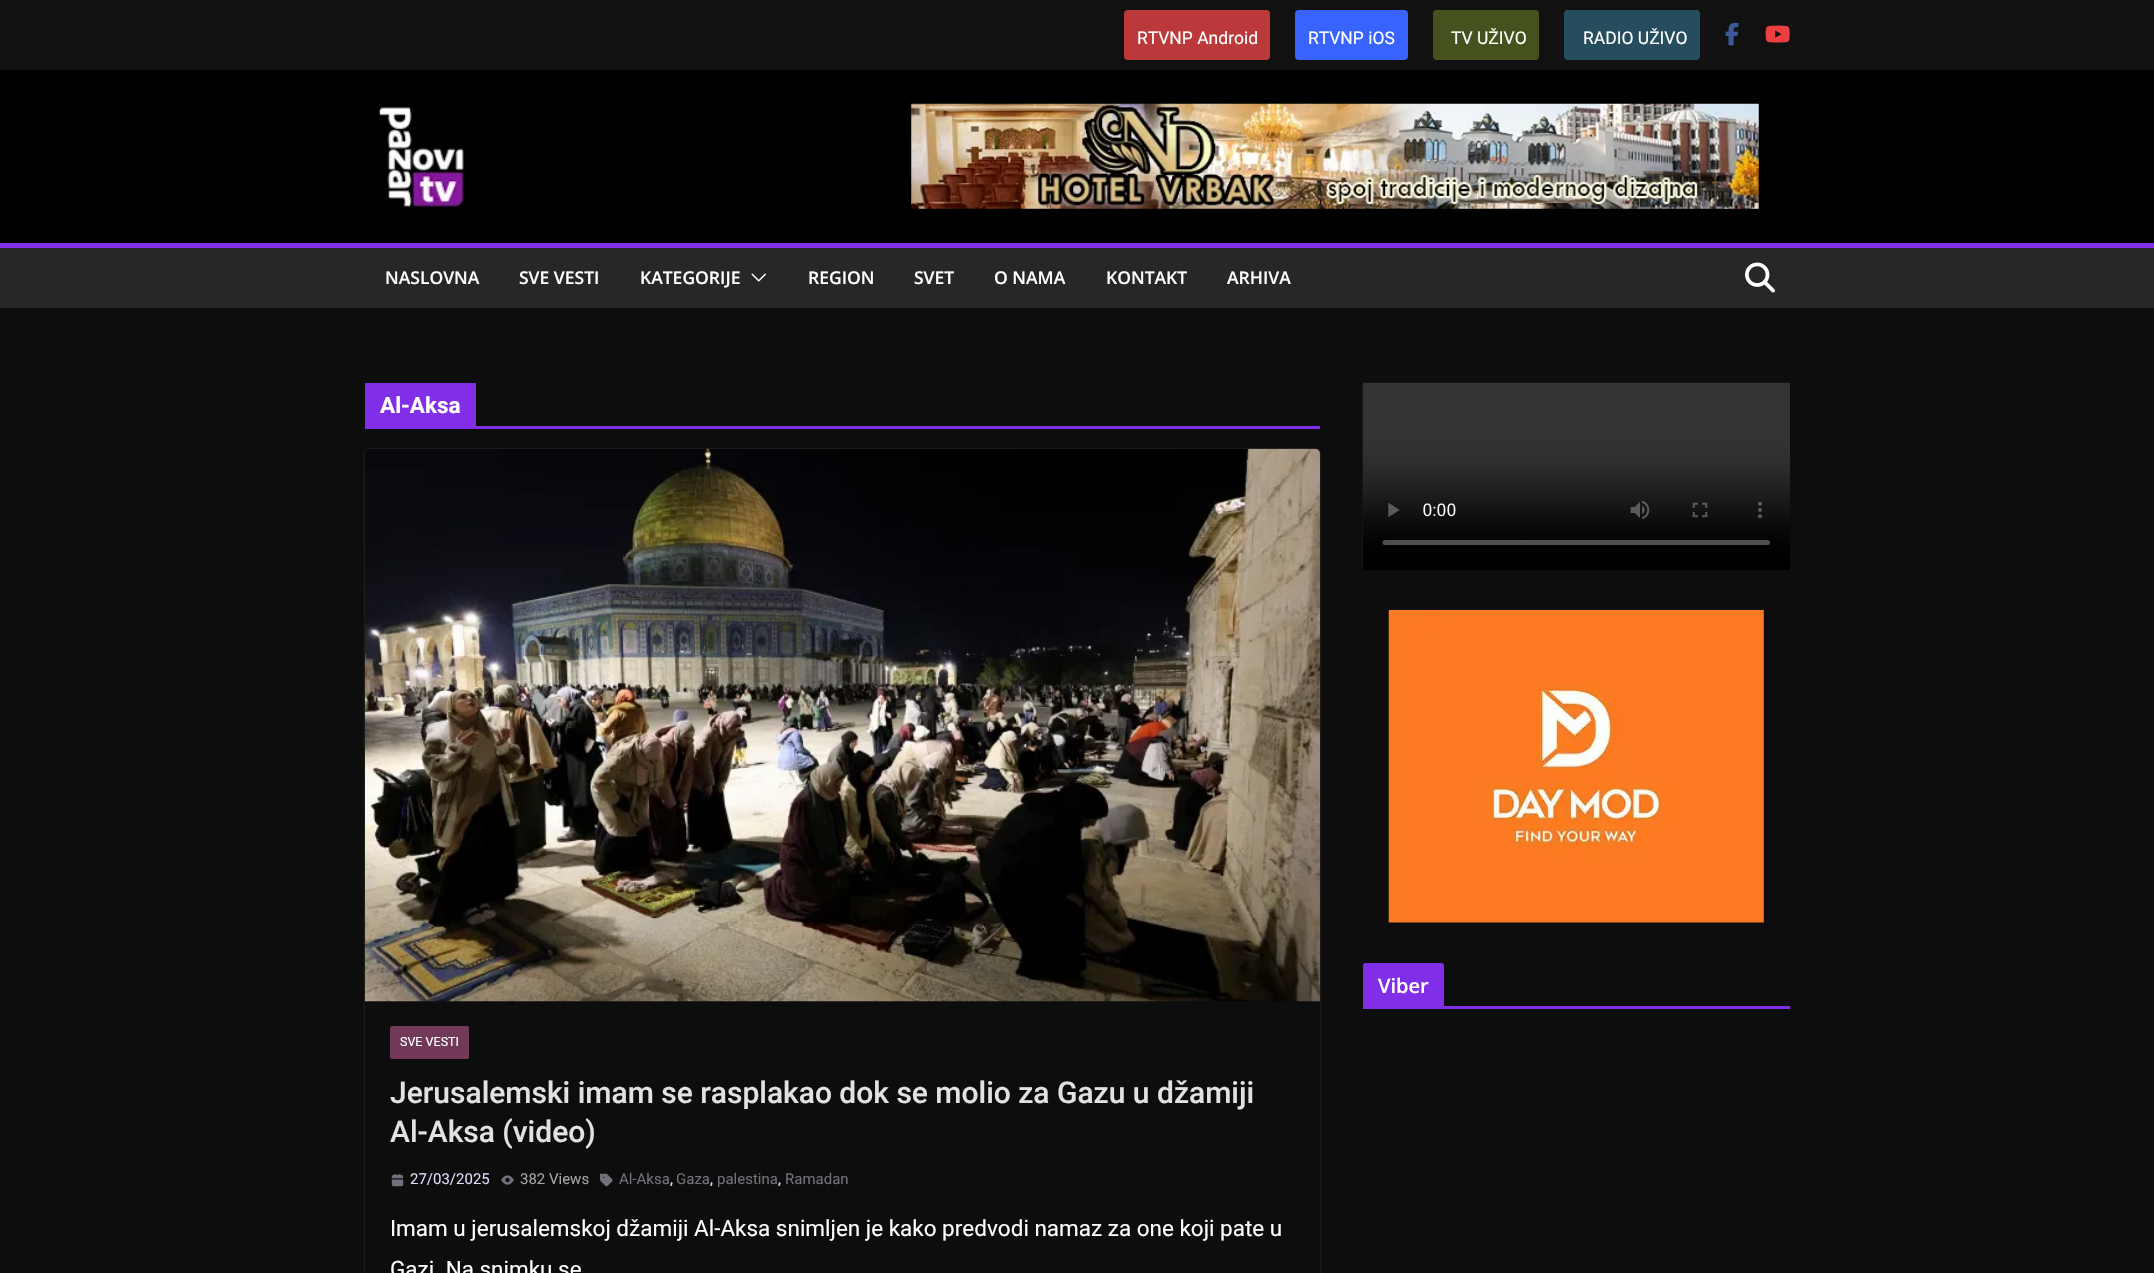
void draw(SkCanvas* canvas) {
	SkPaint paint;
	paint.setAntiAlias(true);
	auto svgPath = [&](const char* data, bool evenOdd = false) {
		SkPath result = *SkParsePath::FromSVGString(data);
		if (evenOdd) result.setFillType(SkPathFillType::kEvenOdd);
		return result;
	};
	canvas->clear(0xff0d0d0d);
	paint.setColor(0xff000000);
	canvas->drawRect(SkRect::MakeXYWH(0, 70, 2154, 173), paint);
	paint.setColor(0xff111111);
	canvas->drawRect(SkRect::MakeXYWH(0, 0, 2154, 70), paint);
	paint.setColor(0xffbb383b);
	canvas->drawRoundRect(SkRect::MakeXYWH(1124, 10, 146, 50), 4, 4, paint);
	SkFont f1(fontMgr->matchFamilyStyle("Roboto", SkFontStyle::Normal()), 17.5);
	f1.setSubpixel(true);
	paint.setColor(0xffffffff);
	canvas->drawString("RTVNP Android", 1137, 44, f1, paint);
	paint.setColor(0xff3863ff);
	canvas->drawRoundRect(SkRect::MakeXYWH(1295, 10, 113, 50), 4, 4, paint);
	paint.setColor(0xffffffff);
	canvas->drawString("RTVNP iOS", 1308, 44, f1, paint);
	paint.setColor(0xff45521d);
	canvas->drawRoundRect(SkRect::MakeXYWH(1433, 10, 106, 50), 4, 4, paint);
	paint.setColor(0xffffffff);
	canvas->drawString("TV UŽIVO", 1451, 44, f1, paint);
	paint.setColor(0xff264d5e);
	canvas->drawRoundRect(SkRect::MakeXYWH(1564, 10, 136, 50), 4, 4, paint);
	paint.setColor(0xffffffff);
	canvas->drawString("RADIO UŽIVO", 1583, 44, f1, paint);
	canvas->drawImageRect(SkImages::DeferredFromEncodedData(SkData::MakeFromFileName("img1.png")), SkRect::MakeXYWH(1725, 22, 14, 24), SkSamplingOptions());
	canvas->drawImageRect(SkImages::DeferredFromEncodedData(SkData::MakeFromFileName("img2.png")), SkRect::MakeXYWH(1765, 25, 25, 18), SkSamplingOptions());
	canvas->drawImageRect(SkImages::DeferredFromEncodedData(SkData::MakeFromFileName("img3.png")), SkRect::MakeXYWH(378, 107, 87, 102), SkSamplingOptions());
	canvas->drawImageRect(SkImages::DeferredFromEncodedData(SkData::MakeFromFileName("img4.png")), SkRect::MakeXYWH(911, 103, 848, 106), SkSamplingOptions());
	paint.setColor(0xff27272a);
	canvas->drawRect(SkRect::MakeXYWH(0, 248, 2154, 60), paint);
	paint.setColor(0xff812ee8);
	canvas->drawRect(SkRect::MakeXYWH(0, 243, 2154, 5), paint);
	SkFont f2(fontMgr->matchFamilyStyle("Open Sans", SkFontStyle(600, SkFontStyle::kNormal_Width, SkFontStyle::kUpright_Slant)), 17.5);
	f2.setSubpixel(true);
	paint.setColor(0xffffffff);
	canvas->drawString("NASLOVNA", 385, 284, f2, paint);
	canvas->drawString("SVE VESTI", 519, 284, f2, paint);
	canvas->drawString("KATEGORIJE", 640, 284, f2, paint);
	canvas->drawImageRect(SkImages::DeferredFromEncodedData(SkData::MakeFromFileName("img5.png")), SkRect::MakeXYWH(751, 273, 15, 9), SkSamplingOptions());
	canvas->drawString("REGION", 808, 284, f2, paint);
	canvas->drawString("SVET", 914, 284, f2, paint);
	canvas->drawString("O NAMA", 994, 284, f2, paint);
	canvas->drawString("KONTAKT", 1106, 284, f2, paint);
	canvas->drawString("ARHIVA", 1227, 284, f2, paint);
	canvas->drawImageRect(SkImages::DeferredFromEncodedData(SkData::MakeFromFileName("img6.png")), SkRect::MakeXYWH(1745, 262, 30, 31), SkSamplingOptions());
	paint.setColor(0xff812ee8);
	canvas->drawRect(SkRect::MakeXYWH(365, 426, 955, 3), paint);
	canvas->drawRect(SkRect::MakeXYWH(365, 383, 111, 43), paint);
	SkFont f3(fontMgr->matchFamilyStyle("Roboto", SkFontStyle::Bold()), 22.5);
	f3.setSubpixel(true);
	paint.setColor(0xffffffff);
	canvas->drawString("Al-Aksa", 380, 413, f3, paint);
	canvas->save();
	canvas->clipPath(svgPath("M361 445H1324V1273H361ZM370 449H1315C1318 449 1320 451 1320 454V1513C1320 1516 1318 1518 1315 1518H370C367 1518 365 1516 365 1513V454C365 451 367 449 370 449Z", true), true);
	paint.setColor(0x3dffffff);
	paint.setMaskFilter(SkMaskFilter::MakeBlur(kNormal_SkBlurStyle, 1));
	canvas->drawRoundRect(SkRect::MakeXYWH(365, 449, 955, 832), 5, 5, paint);
	paint.setMaskFilter(nullptr);
	canvas->restore();
	canvas->drawImageRect(SkImages::DeferredFromEncodedData(SkData::MakeFromFileName("img7.png")), SkRect::MakeXYWH(365, 448, 955, 554), SkSamplingOptions());
	paint.setColor(0xff723a58);
	canvas->drawRoundRect(SkRect::MakeXYWH(390, 1026, 79, 33), 2.5, 2.5, paint);
	SkFont f4(fontMgr->matchFamilyStyle("Roboto", SkFontStyle::Normal()), 12.5);
	f4.setSubpixel(true);
	paint.setColor(0xffffffff);
	canvas->drawString("SVE VESTI", 400, 1046, f4, paint);
	SkFont f5(fontMgr->matchFamilyStyle("Roboto", SkFontStyle(500, SkFontStyle::kNormal_Width, SkFontStyle::kUpright_Slant)), 30);
	f5.setSubpixel(true);
	paint.setColor(0xffe3e2e2);
	canvas->drawString("Jerusalemski imam se rasplakao dok se molio za Gazu u džamiji", 390, 1103, f5, paint);
	canvas->drawString("Al-Aksa (video)", 390, 1142, f5, paint);
	canvas->drawImageRect(SkImages::DeferredFromEncodedData(SkData::MakeFromFileName("img8.png")), SkRect::MakeXYWH(391, 1173, 13, 14), SkSamplingOptions());
	SkFont f6(fontMgr->matchFamilyStyle("Roboto", SkFontStyle::Normal()), 15);
	f6.setSubpixel(true);
	paint.setColor(0xffddddff);
	canvas->drawString("27/03/2025", 410, 1184, f6, paint);
	canvas->drawImageRect(SkImages::DeferredFromEncodedData(SkData::MakeFromFileName("img9.png")), SkRect::MakeXYWH(501, 1175, 13, 10), SkSamplingOptions());
	paint.setColor(0xffa6a6a6);
	canvas->drawString("382 Views", 520, 1184, f6, paint);
	canvas->drawImageRect(SkImages::DeferredFromEncodedData(SkData::MakeFromFileName("img10.png")), SkRect::MakeXYWH(600, 1173, 13, 14), SkSamplingOptions());
	paint.setColor(0xff71717a);
	canvas->drawString("Al-Aksa", 619, 1184, f6, paint);
	paint.setColor(0xffe3e2e2);
	canvas->drawString(",", 670, 1184, f6, paint);
	paint.setColor(0xff71717a);
	canvas->drawString("Gaza", 676, 1184, f6, paint);
	paint.setColor(0xffe3e2e2);
	canvas->drawString(",", 710, 1184, f6, paint);
	paint.setColor(0xff71717a);
	canvas->drawString("palestina", 717, 1184, f6, paint);
	paint.setColor(0xffe3e2e2);
	canvas->drawString(",", 778, 1184, f6, paint);
	paint.setColor(0xff71717a);
	canvas->drawString("Ramadan", 785, 1184, f6, paint);
	SkFont f7(fontMgr->matchFamilyStyle("Roboto", SkFontStyle::Normal()), 22.5);
	f7.setSubpixel(true);
	paint.setColor(0xffffffff);
	canvas->drawString("Imam u jerusalemskoj džamiji Al-Aksa snimljen je kako predvodi namaz za one koji pate u", 390, 1236, f7, paint);
	canvas->drawString("Gazi. Na snimku se", 390, 1277, f7, paint);
	canvas->drawImageRect(SkImages::DeferredFromEncodedData(SkData::MakeFromFileName("img11.png")), SkRect::MakeXYWH(1362, 382, 428, 188), SkSamplingOptions());
	canvas->drawImageRect(SkImages::DeferredFromEncodedData(SkData::MakeFromFileName("img12.png")), SkRect::MakeXYWH(1388, 610, 376, 313), SkSamplingOptions());
	paint.setColor(0xff812ee8);
	canvas->drawRect(SkRect::MakeXYWH(1363, 1006, 427, 3), paint);
	canvas->drawPath(svgPath("M1365.5 963H1441.5C1443 963 1444 964 1444 965.5V1006H1363V965.5C1363 964 1364 963 1365.5 963Z"), paint);
	SkFont f8(fontMgr->matchFamilyStyle("Open Sans", SkFontStyle(600, SkFontStyle::kNormal_Width, SkFontStyle::kUpright_Slant)), 20);
	f8.setSubpixel(true);
	paint.setColor(0xffffffff);
	canvas->drawString("Viber", 1378, 993, f8, paint);
}
